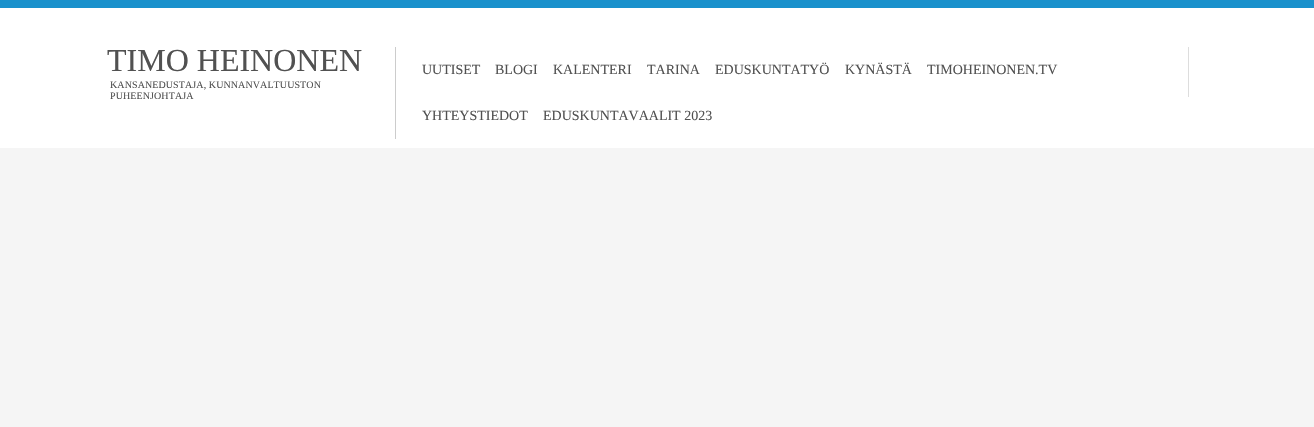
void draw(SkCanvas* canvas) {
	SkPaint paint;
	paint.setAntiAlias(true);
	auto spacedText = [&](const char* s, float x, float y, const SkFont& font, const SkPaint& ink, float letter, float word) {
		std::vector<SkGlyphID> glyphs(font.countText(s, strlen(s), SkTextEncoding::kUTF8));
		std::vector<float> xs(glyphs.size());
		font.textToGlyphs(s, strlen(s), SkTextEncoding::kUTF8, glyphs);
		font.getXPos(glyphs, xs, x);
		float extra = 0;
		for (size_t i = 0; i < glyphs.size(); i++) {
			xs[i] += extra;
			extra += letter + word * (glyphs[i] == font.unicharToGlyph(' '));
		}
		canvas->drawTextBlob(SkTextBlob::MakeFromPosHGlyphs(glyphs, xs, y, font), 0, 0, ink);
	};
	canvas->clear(0xfff5f5f5);
	paint.setColor(0xffffffff);
	canvas->drawRect(SkRect::MakeXYWH(0, 8, 1314, 140), paint);
	paint.setColor(0xff1a91cc);
	canvas->drawRect(SkRect::MakeXYWH(0, 0, 1314, 8), paint);
	SkFont f1(fontMgr->matchFamilyStyle("Liberation Serif", SkFontStyle::Normal()), 32);
	f1.setSubpixel(true);
	paint.setColor(0xff515151);
	canvas->drawString("TIMO HEINONEN", 107, 71, f1, paint);
	SkFont f2(fontMgr->matchFamilyStyle("Liberation Serif", SkFontStyle::Normal()), 10);
	f2.setSubpixel(true);
	spacedText("KANSANEDUSTAJA, KUNNANVALTUUSTON", 110, 88, f2, paint, 0.1, 0);
	spacedText("PUHEENJOHTAJA", 110, 99, f2, paint, 0.1, 0);
	paint.setColor(0xffcccccc);
	canvas->drawRect(SkRect::MakeXYWH(395, 47, 1, 92), paint);
	SkFont f3(fontMgr->matchFamilyStyle("Liberation Serif", SkFontStyle::Normal()), 14);
	f3.setSubpixel(true);
	paint.setColor(0xff515151);
	canvas->drawString("UUTISET", 422, 74, f3, paint);
	canvas->drawString("BLOGI", 495, 74, f3, paint);
	canvas->drawString("KALENTERI", 553, 74, f3, paint);
	canvas->drawString("TARINA", 647, 74, f3, paint);
	canvas->drawString("EDUSKUNTATYÖ", 715, 74, f3, paint);
	canvas->drawString("KYNÄSTÄ", 845, 74, f3, paint);
	canvas->drawString("TIMOHEINONEN.TV", 927, 74, f3, paint);
	canvas->drawString("YHTEYSTIEDOT", 422, 120, f3, paint);
	canvas->drawString("EDUSKUNTAVAALIT 2023", 543, 120, f3, paint);
	paint.setColor(0xffdddddd);
	canvas->drawRect(SkRect::MakeXYWH(1188, 47, 1, 50), paint);
}
